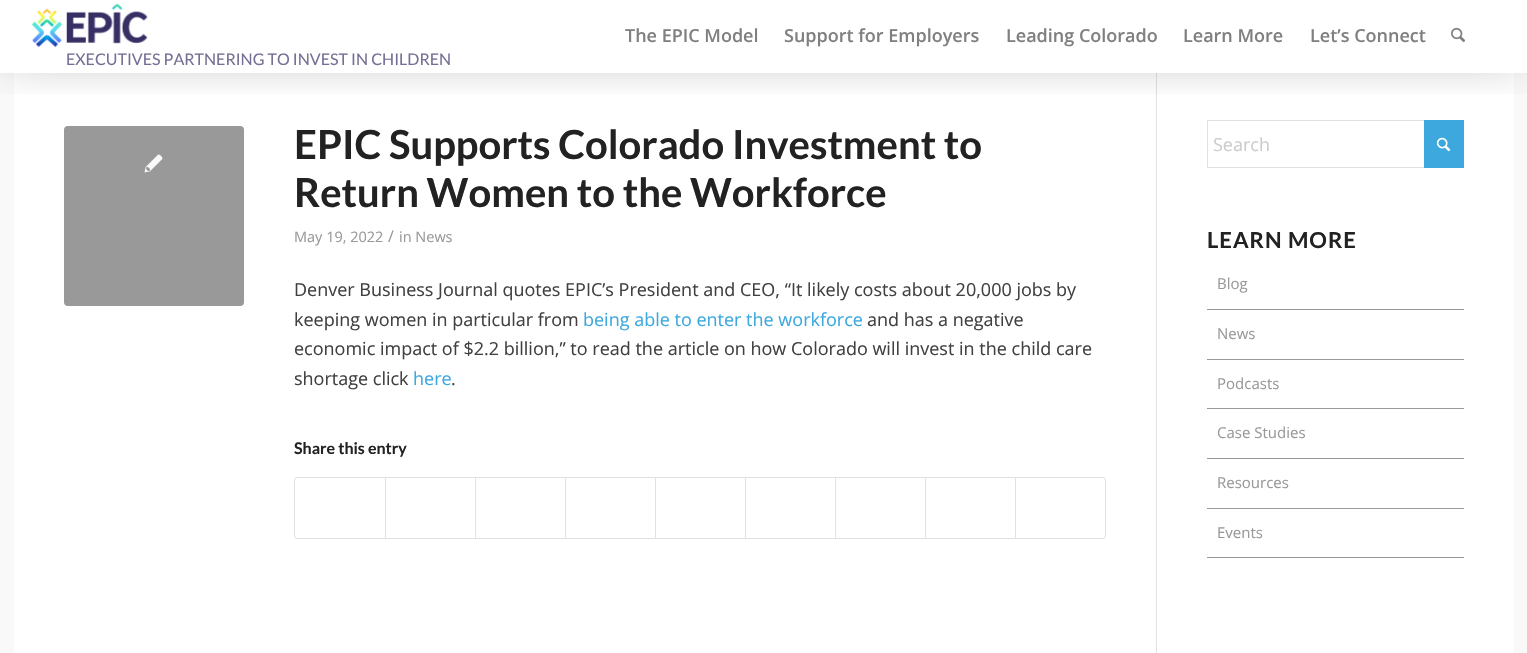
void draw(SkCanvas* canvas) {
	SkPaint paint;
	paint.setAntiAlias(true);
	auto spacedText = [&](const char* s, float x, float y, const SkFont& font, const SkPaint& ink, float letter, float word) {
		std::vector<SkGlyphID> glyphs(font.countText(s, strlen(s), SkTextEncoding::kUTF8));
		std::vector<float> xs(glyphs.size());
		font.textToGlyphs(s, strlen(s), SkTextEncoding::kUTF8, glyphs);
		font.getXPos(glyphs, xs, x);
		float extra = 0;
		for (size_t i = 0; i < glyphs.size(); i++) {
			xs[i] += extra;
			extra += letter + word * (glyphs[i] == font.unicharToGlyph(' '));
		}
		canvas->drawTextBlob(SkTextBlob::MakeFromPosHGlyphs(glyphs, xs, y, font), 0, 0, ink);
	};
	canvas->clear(0xffffffff);
	paint.setColor(0xfff9f9f9);
	canvas->drawRect(SkRect::MakeXYWH(0, 73, 1527, 580), paint);
	paint.setColor(0xffffffff);
	canvas->drawRect(SkRect::MakeXYWH(14, 73, 1500, 580), paint);
	paint.setColor(0xffe1e1e1);
	canvas->drawRect(SkRect::MakeXYWH(1156, 70, 1, 583), paint);
	paint.setColor(0xfffefefe);
	canvas->drawRect(SkRect::MakeXYWH(1156, 70, 1, 3), paint);
	paint.setColor(0xff999999);
	canvas->drawRoundRect(SkRect::MakeXYWH(64, 126, 180, 180), 4, 4, paint);
	paint.setStroke(true);
	paint.setStrokeWidth(1);
	paint.setColor(0xffe1e1e1);
	canvas->drawRect(SkRect::MakeXYWH(1207.5, 120.5, 256, 47), paint);
	paint.setStroke(false);
	paint.setColor(0xff3ca8de);
	canvas->drawRect(SkRect::MakeXYWH(1424, 120, 40, 48), paint);
	canvas->save();
	canvas->clipRect(SkRect::MakeXYWH(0, 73, 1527, 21));
	paint.setColor(0x33000000);
	paint.setMaskFilter(SkMaskFilter::MakeBlur(kNormal_SkBlurStyle, 20));
	canvas->drawRect(SkRect::MakeXYWH(5, 5, 1517, 63), paint);
	paint.setMaskFilter(nullptr);
	canvas->restore();
	canvas->drawImageRect(SkImages::DeferredFromEncodedData(SkData::MakeFromFileName("img1.png")), SkRect::MakeXYWH(31, 3, 117, 45), SkSamplingOptions());
	SkFont f1(fontMgr->matchFamilyStyle("Open Sans", SkFontStyle(600, SkFontStyle::kNormal_Width, SkFontStyle::kUpright_Slant)), 18);
	f1.setSubpixel(true);
	paint.setColor(0xff808080);
	canvas->drawString("The EPIC Model", 625, 42, f1, paint);
	canvas->drawString("Support for Employers", 784, 42, f1, paint);
	canvas->drawString("Leading Colorado", 1006, 42, f1, paint);
	canvas->drawString("Learn More", 1183, 42, f1, paint);
	canvas->drawString("Let’s Connect", 1310, 42, f1, paint);
	canvas->drawImageRect(SkImages::DeferredFromEncodedData(SkData::MakeFromFileName("img2.png")), SkRect::MakeXYWH(1451, 27, 14, 16), SkSamplingOptions());
	SkFont f2(fontMgr->matchFamilyStyle("Lato", SkFontStyle::Normal()), 16);
	f2.setSubpixel(true);
	paint.setColor(0xff747095);
	canvas->drawString("EXECUTIVES PARTNERING TO INVEST IN CHILDREN", 66, 65, f2, paint);
	canvas->drawImageRect(SkImages::DeferredFromEncodedData(SkData::MakeFromFileName("img3.png")), SkRect::MakeXYWH(144, 154, 19, 19), SkSamplingOptions());
	SkFont f3(fontMgr->matchFamilyStyle("Lato", SkFontStyle::Bold()), 40);
	f3.setSubpixel(true);
	paint.setColor(0xff222222);
	canvas->drawString("EPIC Supports Colorado Investment to", 294, 159, f3, paint);
	canvas->drawString("Return Women to the Workforce", 294, 207, f3, paint);
	SkFont f4(fontMgr->matchFamilyStyle("Open Sans", SkFontStyle::Normal()), 14.5);
	f4.setSubpixel(true);
	paint.setColor(0xff999999);
	canvas->drawString("May 19, 2022", 294, 242, f4, paint);
	SkFont f5(fontMgr->matchFamilyStyle("Open Sans", SkFontStyle::Normal()), 16);
	f5.setSubpixel(true);
	canvas->drawString("/", 388, 242, f5, paint);
	canvas->drawString("in News", 399, 242, f4, paint);
	SkFont f6(fontMgr->matchFamilyStyle("Open Sans", SkFontStyle::Normal()), 18);
	f6.setSubpixel(true);
	paint.setColor(0xff404040);
	canvas->drawString("Denver Business Journal quotes EPIC’s President and CEO, “It likely costs about 20,000 jobs by", 294, 296, f6, paint);
	canvas->drawString("keeping women in particular from", 294, 326, f6, paint);
	paint.setColor(0xff3ca8de);
	canvas->drawString("being able to enter the workforce", 583, 326, f6, paint);
	paint.setColor(0xff404040);
	canvas->drawString("and has a negative", 867, 326, f6, paint);
	canvas->drawString("economic impact of $2.2 billion,” to read the article on how Colorado will invest in the child care", 294, 355, f6, paint);
	canvas->drawString("shortage click", 294, 385, f6, paint);
	paint.setColor(0xff3ca8de);
	canvas->drawString("here", 413, 385, f6, paint);
	paint.setColor(0xff404040);
	canvas->drawString(".", 451, 385, f6, paint);
	SkFont f7(fontMgr->matchFamilyStyle("Lato", SkFontStyle::Bold()), 16);
	f7.setSubpixel(true);
	paint.setColor(0xff222222);
	canvas->drawString("Share this entry", 294, 454, f7, paint);
	paint.setStroke(true);
	paint.setColor(0xffe1e1e1);
	canvas->drawRoundRect(SkRect::MakeXYWH(294.5, 477.5, 811, 61), 2.5, 2.5, paint);
	paint.setStroke(false);
	canvas->drawRect(SkRect::MakeXYWH(385, 478, 1, 60), paint);
	canvas->drawRect(SkRect::MakeXYWH(475, 478, 1, 60), paint);
	canvas->drawRect(SkRect::MakeXYWH(565, 478, 1, 60), paint);
	canvas->drawRect(SkRect::MakeXYWH(655, 478, 1, 60), paint);
	canvas->drawRect(SkRect::MakeXYWH(745, 478, 1, 60), paint);
	canvas->drawRect(SkRect::MakeXYWH(835, 478, 1, 60), paint);
	canvas->drawRect(SkRect::MakeXYWH(925, 478, 1, 60), paint);
	canvas->drawRect(SkRect::MakeXYWH(1015, 478, 1, 60), paint);
	paint.setColor(0xffcccccc);
	canvas->drawString("Search", 1213, 151, f6, paint);
	canvas->drawImageRect(SkImages::DeferredFromEncodedData(SkData::MakeFromFileName("img4.png")), SkRect::MakeXYWH(1436, 137, 15, 15), SkSamplingOptions());
	SkFont f8(fontMgr->matchFamilyStyle("Lato", SkFontStyle::Bold()), 22);
	f8.setSubpixel(true);
	paint.setColor(0xff222222);
	spacedText("LEARN MORE", 1207, 248, f8, paint, 1, 0);
	paint.setColor(0xff999999);
	canvas->drawRect(SkRect::MakeXYWH(1207, 309, 257, 1), paint);
	SkFont f9(fontMgr->matchFamilyStyle("Open Sans", SkFontStyle::Normal()), 15);
	f9.setSubpixel(true);
	canvas->drawString("Blog", 1217, 289, f9, paint);
	canvas->drawRect(SkRect::MakeXYWH(1207, 359, 257, 1), paint);
	canvas->drawString("News", 1217, 339, f9, paint);
	canvas->drawRect(SkRect::MakeXYWH(1207, 408, 257, 1), paint);
	canvas->drawString("Podcasts", 1217, 389, f9, paint);
	canvas->drawRect(SkRect::MakeXYWH(1207, 458, 257, 1), paint);
	canvas->drawString("Case Studies", 1217, 438, f9, paint);
	canvas->drawRect(SkRect::MakeXYWH(1207, 508, 257, 1), paint);
	canvas->drawString("Resources", 1217, 488, f9, paint);
	canvas->drawRect(SkRect::MakeXYWH(1207, 557, 257, 1), paint);
	canvas->drawString("Events", 1217, 538, f9, paint);
}
